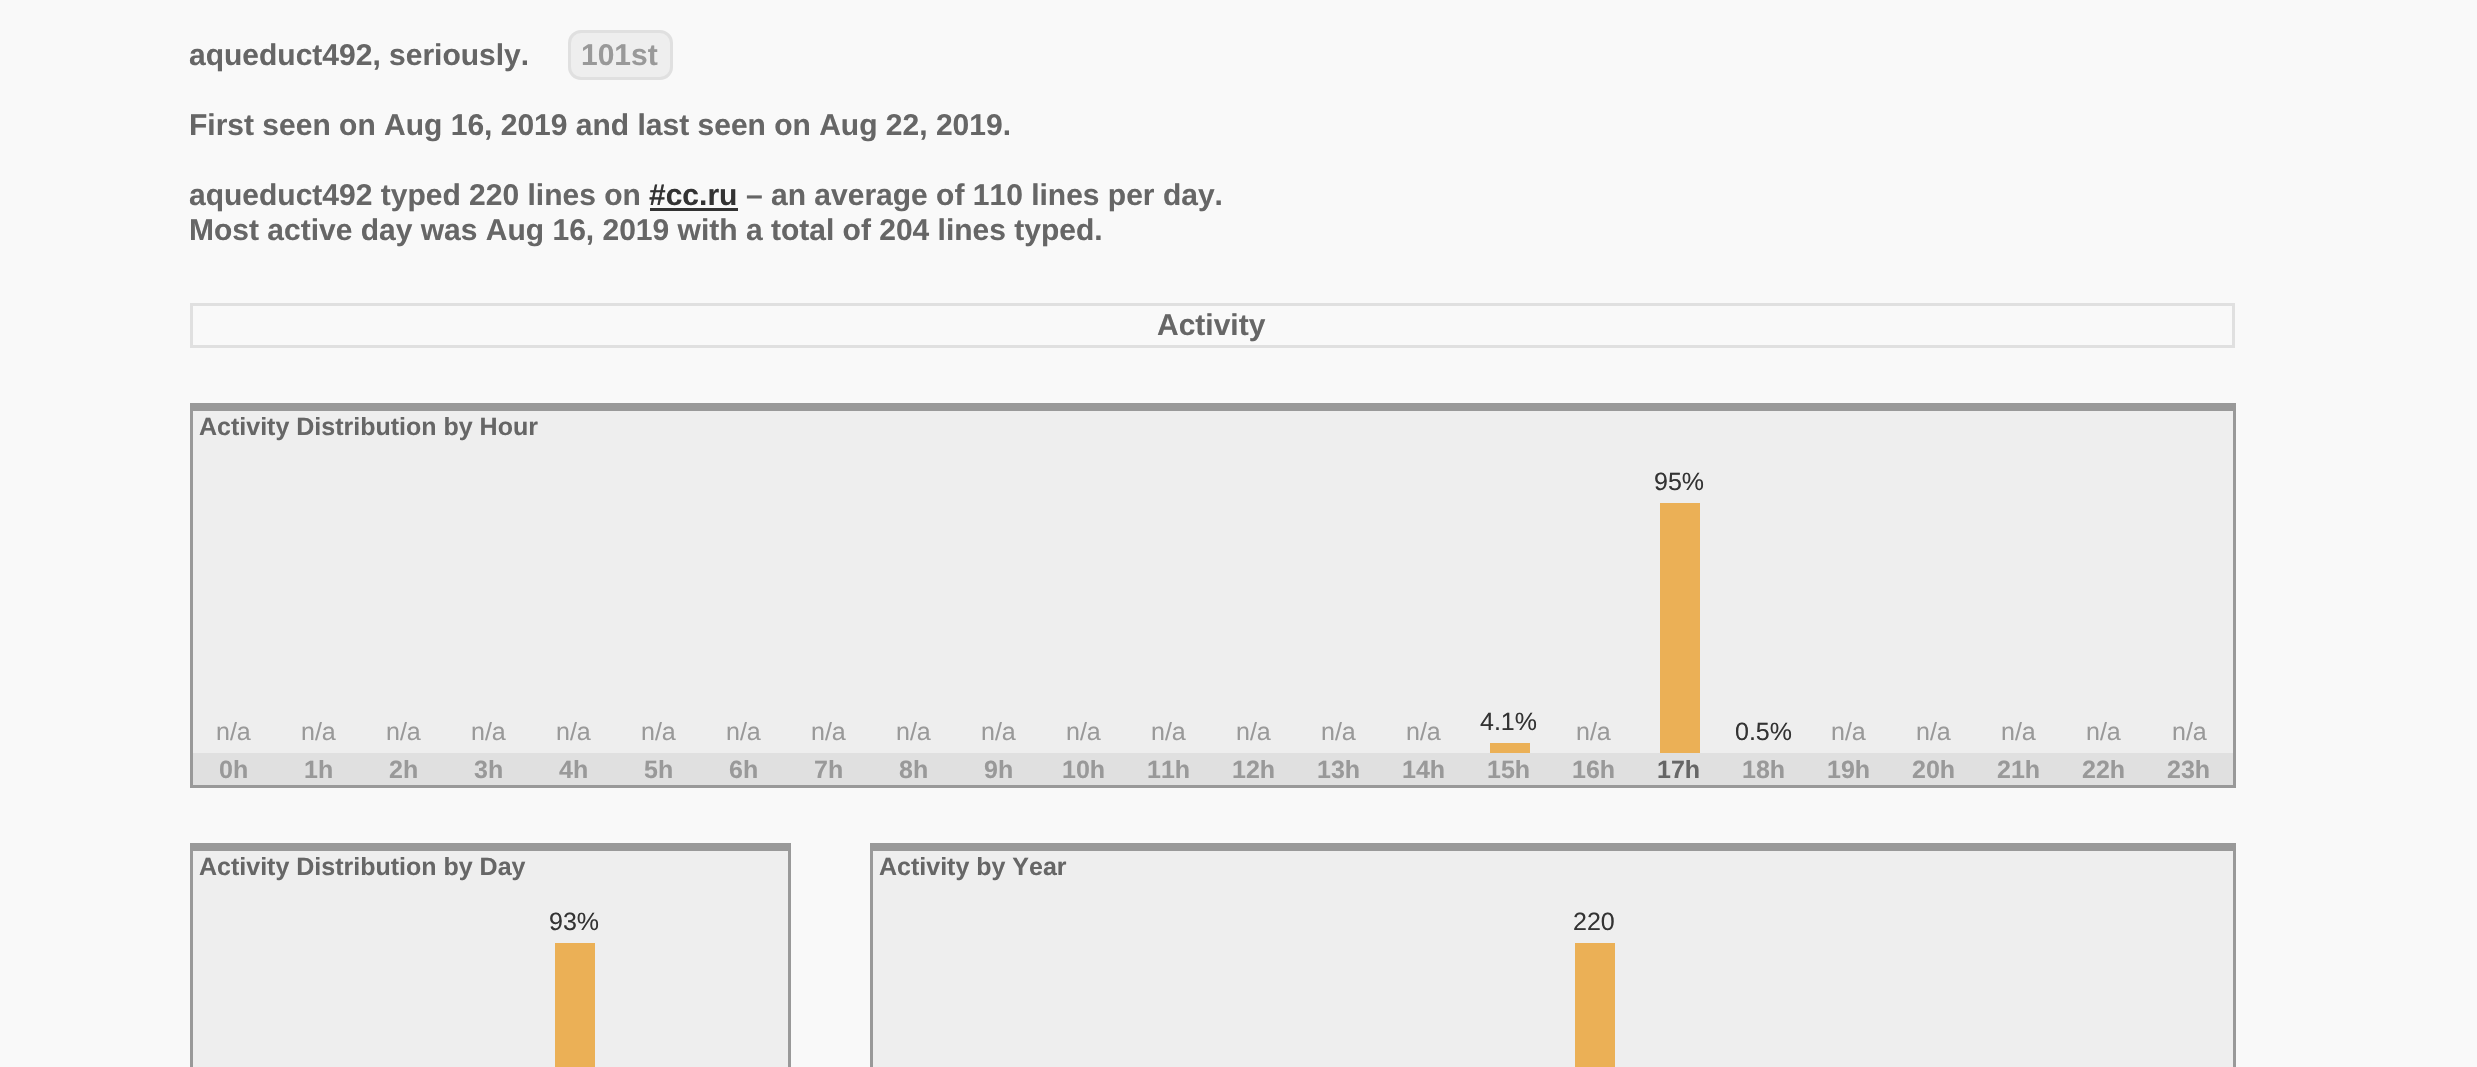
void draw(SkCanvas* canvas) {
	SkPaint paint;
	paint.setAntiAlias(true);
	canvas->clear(0xfff9f9f9);
	SkFont f1(fontMgr->matchFamilyStyle("Liberation Sans", SkFontStyle::Bold()), 30);
	f1.setSubpixel(true);
	paint.setColor(0xff666666);
	canvas->drawString("aqueduct492, seriously.", 189, 65, f1, paint);
	paint.setColor(0xffeeeeee);
	canvas->drawRoundRect(SkRect::MakeXYWH(569.5, 31.5, 102, 47), 11.5, 11.5, paint);
	paint.setStroke(true);
	paint.setStrokeWidth(3);
	paint.setColor(0xffe0e0e0);
	canvas->drawRoundRect(SkRect::MakeXYWH(569.5, 31.5, 102, 47), 11.5, 11.5, paint);
	paint.setStroke(false);
	paint.setColor(0xff999999);
	canvas->drawString("101st", 581, 65, f1, paint);
	paint.setColor(0xff666666);
	canvas->drawString("First seen on Aug 16, 2019 and last seen on Aug 22, 2019.", 189, 135, f1, paint);
	canvas->drawString("aqueduct492 typed 220 lines on", 189, 205, f1, paint);
	paint.setColor(0xff333333);
	canvas->drawString("#cc.ru", 649, 205, f1, paint);
	canvas->drawRect(SkRect::MakeXYWH(650, 208, 88, 3), paint);
	paint.setColor(0xff666666);
	canvas->drawString("– an average of 110 lines per day.", 746, 205, f1, paint);
	canvas->drawString("Most active day was Aug 16, 2019 with a total of 204 lines typed.", 189, 240, f1, paint);
	paint.setStroke(true);
	paint.setColor(0xffe0e0e0);
	canvas->drawRect(SkRect::MakeXYWH(191.5, 304.5, 2042, 42), paint);
	paint.setStroke(false);
	paint.setColor(0xff666666);
	canvas->drawString("Activity", 1157, 335, f1, paint);
	paint.setColor(0xffeeeeee);
	canvas->drawRect(SkRect::MakeXYWH(193, 411, 2040, 342), paint);
	paint.setColor(0xff999999);
	canvas->drawRect(SkRect::MakeXYWH(190, 403, 2045, 8), paint);
	canvas->drawRect(SkRect::MakeXYWH(2233, 403, 3, 385), paint);
	canvas->drawRect(SkRect::MakeXYWH(190, 785, 2045, 3), paint);
	canvas->drawRect(SkRect::MakeXYWH(190, 403, 3, 385), paint);
	SkFont f2(fontMgr->matchFamilyStyle("Liberation Sans", SkFontStyle::Bold()), 25);
	f2.setSubpixel(true);
	paint.setColor(0xff666666);
	canvas->drawString("Activity Distribution by Hour", 199, 435, f2, paint);
	SkFont f3(fontMgr->matchFamilyStyle("Liberation Sans", SkFontStyle::Normal()), 25);
	f3.setSubpixel(true);
	paint.setColor(0xff333333);
	canvas->drawString("95%", 1654, 490, f3, paint);
	paint.setColor(0xffebb056);
	canvas->drawRect(SkRect::MakeXYWH(1660, 503, 40, 250), paint);
	paint.setColor(0xff999999);
	canvas->drawString("n/a", 216, 740, f3, paint);
	canvas->drawString("n/a", 301, 740, f3, paint);
	canvas->drawString("n/a", 386, 740, f3, paint);
	canvas->drawString("n/a", 471, 740, f3, paint);
	canvas->drawString("n/a", 556, 740, f3, paint);
	canvas->drawString("n/a", 641, 740, f3, paint);
	canvas->drawString("n/a", 726, 740, f3, paint);
	canvas->drawString("n/a", 811, 740, f3, paint);
	canvas->drawString("n/a", 896, 740, f3, paint);
	canvas->drawString("n/a", 981, 740, f3, paint);
	canvas->drawString("n/a", 1066, 740, f3, paint);
	canvas->drawString("n/a", 1151, 740, f3, paint);
	canvas->drawString("n/a", 1236, 740, f3, paint);
	canvas->drawString("n/a", 1321, 740, f3, paint);
	canvas->drawString("n/a", 1406, 740, f3, paint);
	paint.setColor(0xff333333);
	canvas->drawString("4.1%", 1480, 730, f3, paint);
	paint.setColor(0xffebb056);
	canvas->drawRect(SkRect::MakeXYWH(1490, 743, 40, 10), paint);
	paint.setColor(0xff999999);
	canvas->drawString("n/a", 1576, 740, f3, paint);
	paint.setColor(0xff333333);
	canvas->drawString("0.5%", 1735, 740, f3, paint);
	paint.setColor(0xff999999);
	canvas->drawString("n/a", 1831, 740, f3, paint);
	canvas->drawString("n/a", 1916, 740, f3, paint);
	canvas->drawString("n/a", 2001, 740, f3, paint);
	canvas->drawString("n/a", 2086, 740, f3, paint);
	canvas->drawString("n/a", 2172, 740, f3, paint);
	paint.setColor(0xffe0e0e0);
	canvas->drawRect(SkRect::MakeXYWH(193, 753, 2040, 32), paint);
	paint.setColor(0xff999999);
	canvas->drawString("0h", 219, 778, f2, paint);
	canvas->drawString("1h", 304, 778, f2, paint);
	canvas->drawString("2h", 389, 778, f2, paint);
	canvas->drawString("3h", 474, 778, f2, paint);
	canvas->drawString("4h", 559, 778, f2, paint);
	canvas->drawString("5h", 644, 778, f2, paint);
	canvas->drawString("6h", 729, 778, f2, paint);
	canvas->drawString("7h", 814, 778, f2, paint);
	canvas->drawString("8h", 899, 778, f2, paint);
	canvas->drawString("9h", 984, 778, f2, paint);
	canvas->drawString("10h", 1062, 778, f2, paint);
	canvas->drawString("11h", 1147, 778, f2, paint);
	canvas->drawString("12h", 1232, 778, f2, paint);
	canvas->drawString("13h", 1317, 778, f2, paint);
	canvas->drawString("14h", 1402, 778, f2, paint);
	canvas->drawString("15h", 1487, 778, f2, paint);
	canvas->drawString("16h", 1572, 778, f2, paint);
	paint.setColor(0xff666666);
	canvas->drawString("17h", 1657, 778, f2, paint);
	paint.setColor(0xff999999);
	canvas->drawString("18h", 1742, 778, f2, paint);
	canvas->drawString("19h", 1827, 778, f2, paint);
	canvas->drawString("20h", 1912, 778, f2, paint);
	canvas->drawString("21h", 1997, 778, f2, paint);
	canvas->drawString("22h", 2082, 778, f2, paint);
	canvas->drawString("23h", 2167, 778, f2, paint);
	paint.setColor(0xffeeeeee);
	canvas->drawRect(SkRect::MakeXYWH(193, 851, 595, 216), paint);
	paint.setColor(0xff999999);
	canvas->drawRect(SkRect::MakeXYWH(190, 843, 600, 8), paint);
	canvas->drawRect(SkRect::MakeXYWH(788, 843, 3, 224), paint);
	canvas->drawRect(SkRect::MakeXYWH(190, 843, 3, 224), paint);
	paint.setColor(0xff666666);
	canvas->drawString("Activity Distribution by Day", 199, 875, f2, paint);
	paint.setColor(0xff333333);
	canvas->drawString("93%", 549, 930, f3, paint);
	paint.setColor(0xffebb056);
	canvas->drawRect(SkRect::MakeXYWH(555, 943, 40, 124), paint);
	paint.setColor(0xffeeeeee);
	canvas->drawRect(SkRect::MakeXYWH(873, 851, 1360, 216), paint);
	paint.setColor(0xff999999);
	canvas->drawRect(SkRect::MakeXYWH(870, 843, 1365, 8), paint);
	canvas->drawRect(SkRect::MakeXYWH(2233, 843, 3, 224), paint);
	canvas->drawRect(SkRect::MakeXYWH(870, 843, 3, 224), paint);
	paint.setColor(0xff666666);
	canvas->drawString("Activity by Year", 879, 875, f2, paint);
	paint.setColor(0xff333333);
	canvas->drawString("220", 1573, 930, f3, paint);
	paint.setColor(0xffebb056);
	canvas->drawRect(SkRect::MakeXYWH(1575, 943, 40, 124), paint);
}
